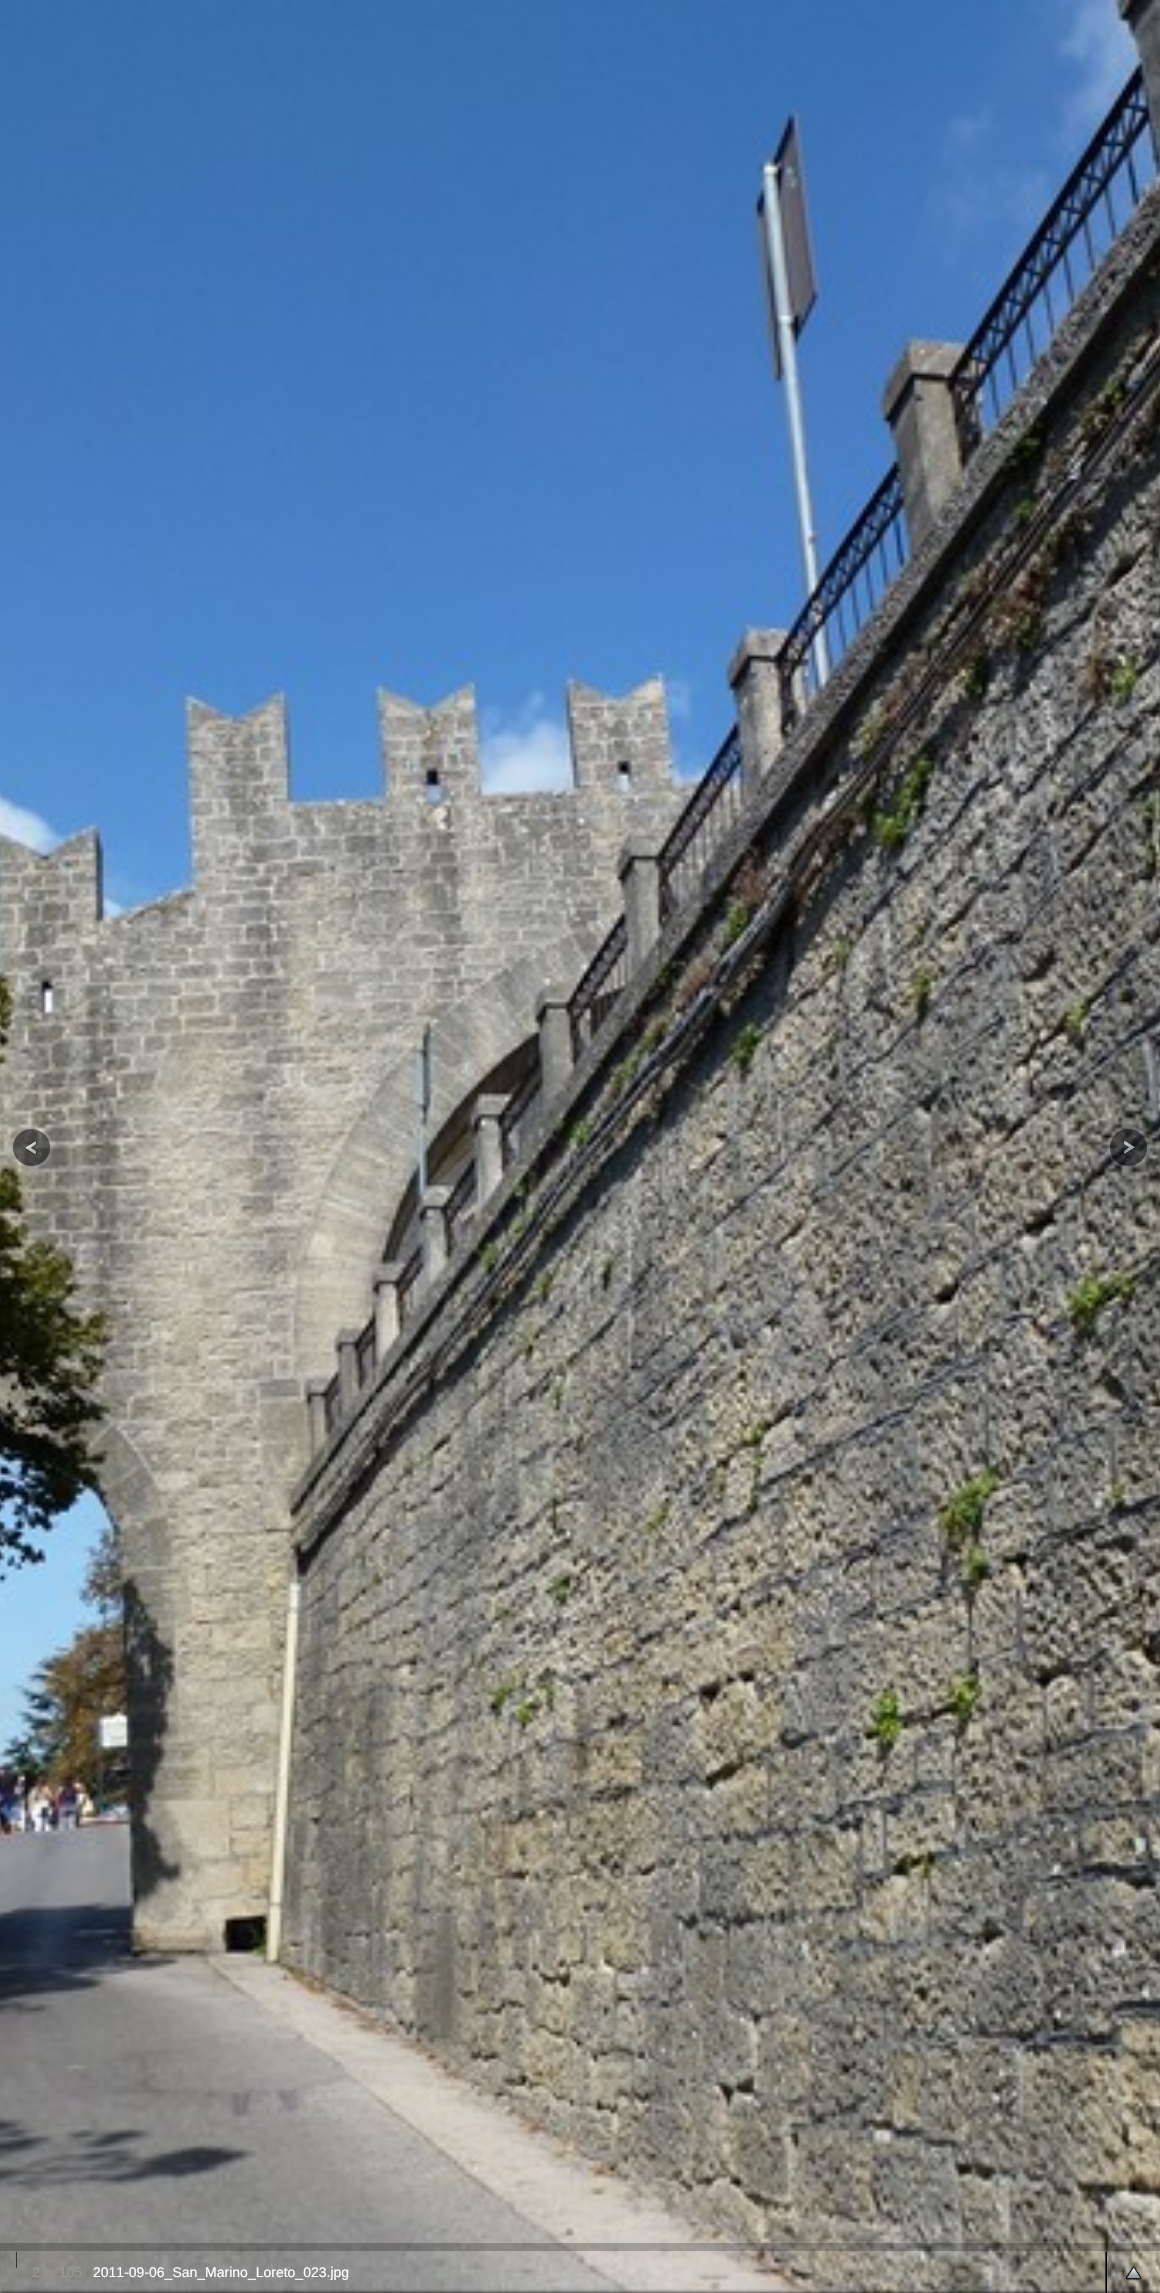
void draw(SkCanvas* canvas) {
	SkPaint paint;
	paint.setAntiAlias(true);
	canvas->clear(0xffffffff);
	canvas->drawImageRect(SkImages::DeferredFromEncodedData(SkData::MakeFromFileName("img1.png")), SkRect::MakeXYWH(0, 0, 1160, 2293), SkSamplingOptions());
	canvas->drawImageRect(SkImages::DeferredFromEncodedData(SkData::MakeFromFileName("img2.png")), SkRect::MakeXYWH(10, 1126, 43, 43), SkSamplingOptions());
	canvas->drawImageRect(SkImages::DeferredFromEncodedData(SkData::MakeFromFileName("img3.png")), SkRect::MakeXYWH(1107, 1126, 43, 43), SkSamplingOptions());
	paint.setColor(0x40101010);
	canvas->drawRect(SkRect::MakeXYWH(0, 2243, 1160, 8), paint);
	paint.setColor(0xff333333);
	canvas->drawRect(SkRect::MakeXYWH(16, 2252, 1, 16), paint);
	SkFont f1(fontMgr->matchFamilyStyle("Liberation Sans", SkFontStyle::Normal()), 14);
	f1.setSubpixel(true);
	paint.setColor(0xff999999);
	canvas->drawString("2", 32, 2277, f1, paint);
	canvas->drawString("105", 59, 2277, f1, paint);
	paint.setColor(0xffffffff);
	canvas->drawString("2011-09-06_San_Marino_Loreto_023.jpg", 93, 2277, f1, paint);
	paint.setColor(0xff000000);
	paint.setMaskFilter(SkMaskFilter::MakeBlur(kNormal_SkBlurStyle, 2));
	canvas->drawRect(SkRect::MakeXYWH(0, 2293, 1160, 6), paint);
	paint.setMaskFilter(nullptr);
	paint.setColor(0xff333333);
	canvas->drawRect(SkRect::MakeXYWH(1105, 2252, 1, 41), paint);
	canvas->drawImageRect(SkImages::DeferredFromEncodedData(SkData::MakeFromFileName("img4.png")), SkRect::MakeXYWH(1106, 2252, 36, 41), SkSamplingOptions());
}
